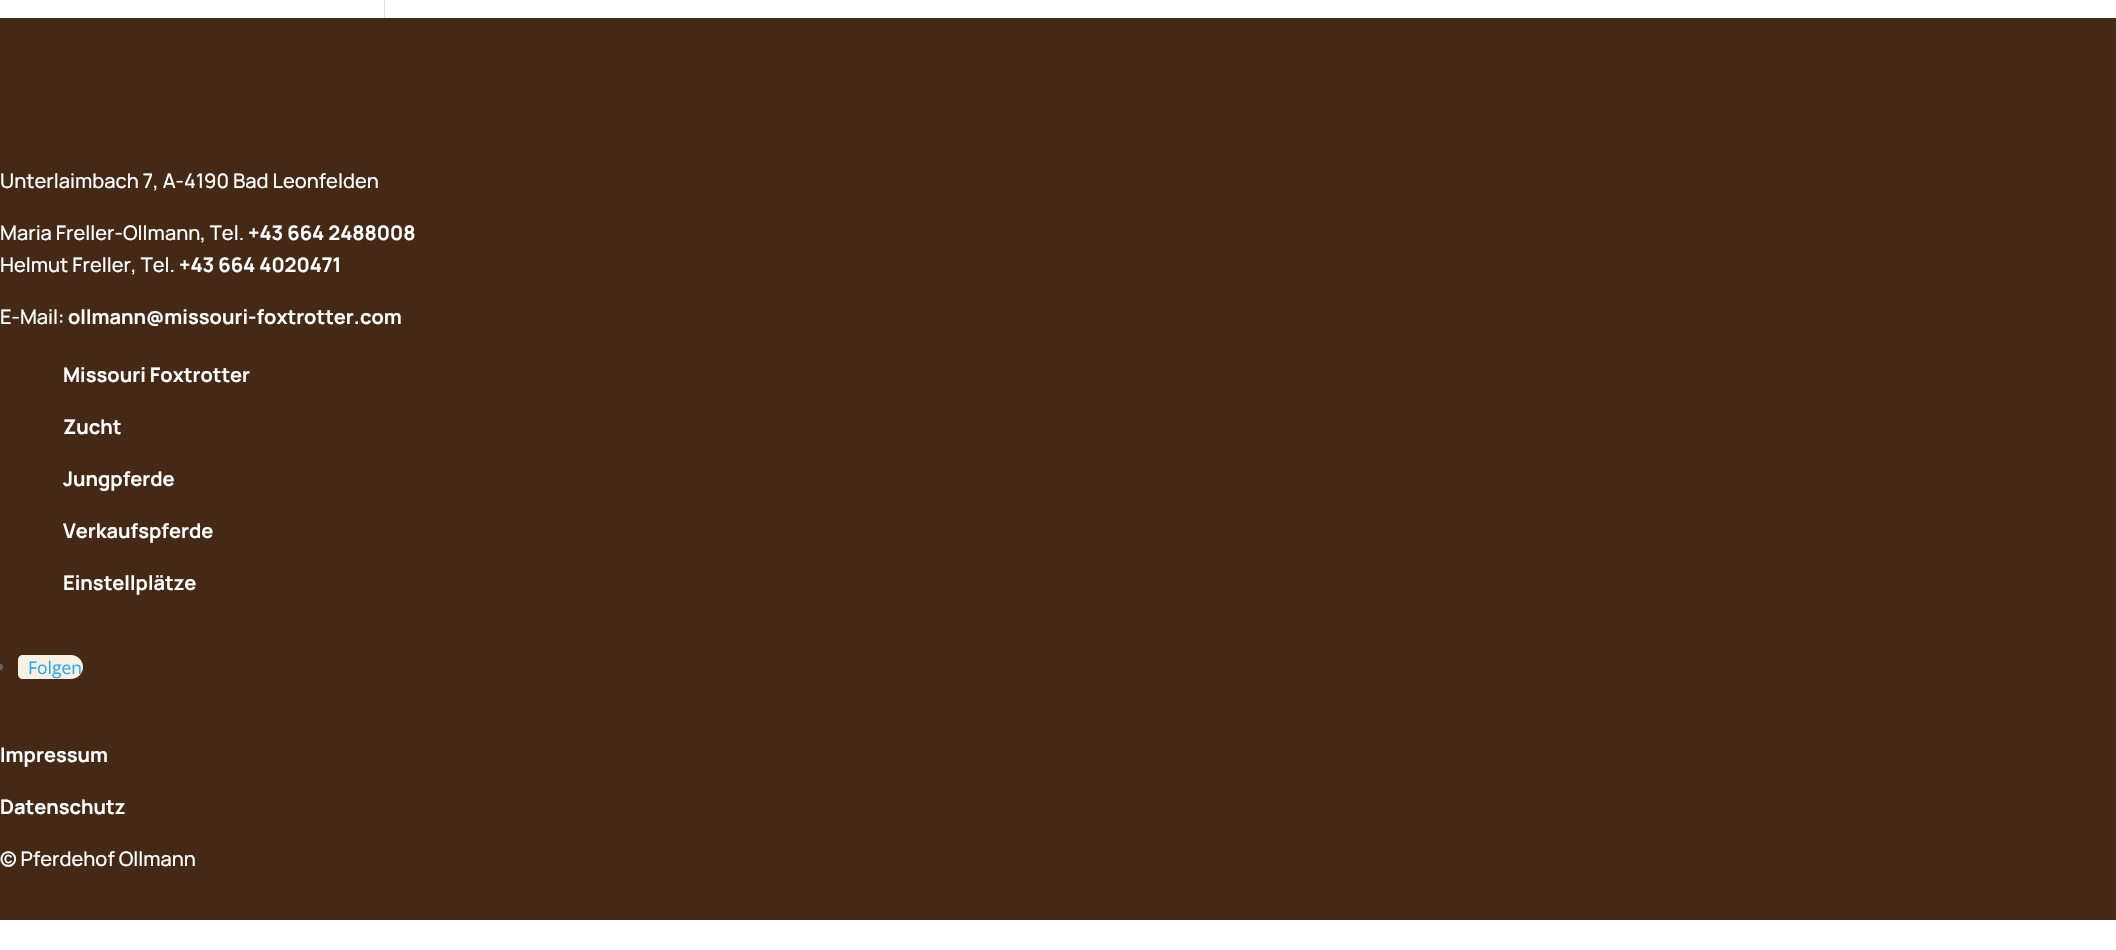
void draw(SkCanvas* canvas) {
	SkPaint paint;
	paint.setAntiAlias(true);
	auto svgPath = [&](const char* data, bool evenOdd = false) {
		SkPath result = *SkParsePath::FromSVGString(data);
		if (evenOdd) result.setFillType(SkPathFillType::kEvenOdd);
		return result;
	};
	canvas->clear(0xffffffff);
	paint.setColor(0xffe2e2e2);
	canvas->drawRect(SkRect::MakeXYWH(384, 0, 1, 18), paint);
	paint.setColor(0xff452917);
	canvas->drawRect(SkRect::MakeXYWH(0, 18, 2116, 902), paint);
	SkFont f1(fontMgr->matchFamilyStyle("Manrope", SkFontStyle(500, SkFontStyle::kNormal_Width, SkFontStyle::kUpright_Slant)), 20);
	f1.setSubpixel(true);
	paint.setColor(0xffffffff);
	canvas->drawString("Unterlaimbach 7, A-4190 Bad Leonfelden", 0, 188, f1, paint);
	canvas->drawString("Maria Freller-Ollmann, Tel.", 0, 240, f1, paint);
	SkFont f2(fontMgr->matchFamilyStyle("Manrope", SkFontStyle::Bold()), 20);
	f2.setSubpixel(true);
	canvas->drawString("+43 664 2488008", 248, 240, f2, paint);
	canvas->drawString("Helmut Freller, Tel.", 0, 272, f1, paint);
	canvas->drawString("+43 664 4020471", 179, 272, f2, paint);
	canvas->drawString("E-Mail:", 0, 324, f1, paint);
	canvas->drawString("ollmann@missouri-foxtrotter.com", 68, 324, f2, paint);
	canvas->drawString("Missouri Foxtrotter", 63, 382, f2, paint);
	canvas->drawString("Zucht", 63, 434, f2, paint);
	canvas->drawString("Jungpferde", 63, 486, f2, paint);
	canvas->drawString("Verkaufspferde", 63, 538, f2, paint);
	canvas->drawString("Einstellplätze", 63, 590, f2, paint);
	paint.setColor(0xff666666);
	canvas->drawCircle(0, 667, 3, paint);
	paint.setColor(0xfff6f1e3);
	canvas->drawPath(svgPath("M28 655H71C77.5 655 83 660.5 83 667C83 673.5 77.5 679 71 679H28Z"), paint);
	SkFont f3(fontMgr->matchFamilyStyle("Open Sans", SkFontStyle::Normal()), 17.5);
	f3.setSubpixel(true);
	paint.setColor(0xff2ea3f2);
	canvas->drawString("Folgen", 28, 674, f3, paint);
	paint.setColor(0xfff6f1e3);
	canvas->drawPath(svgPath("M23 655H28V679H23C20 679 18 677 18 674V660C18 657 20 655 23 655Z"), paint);
	paint.setColor(0xffffffff);
	canvas->drawString("Impressum", 0, 762, f2, paint);
	canvas->drawString("Datenschutz", 0, 814, f2, paint);
	canvas->drawString("© Pferdehof Ollmann", 0, 866, f1, paint);
}
